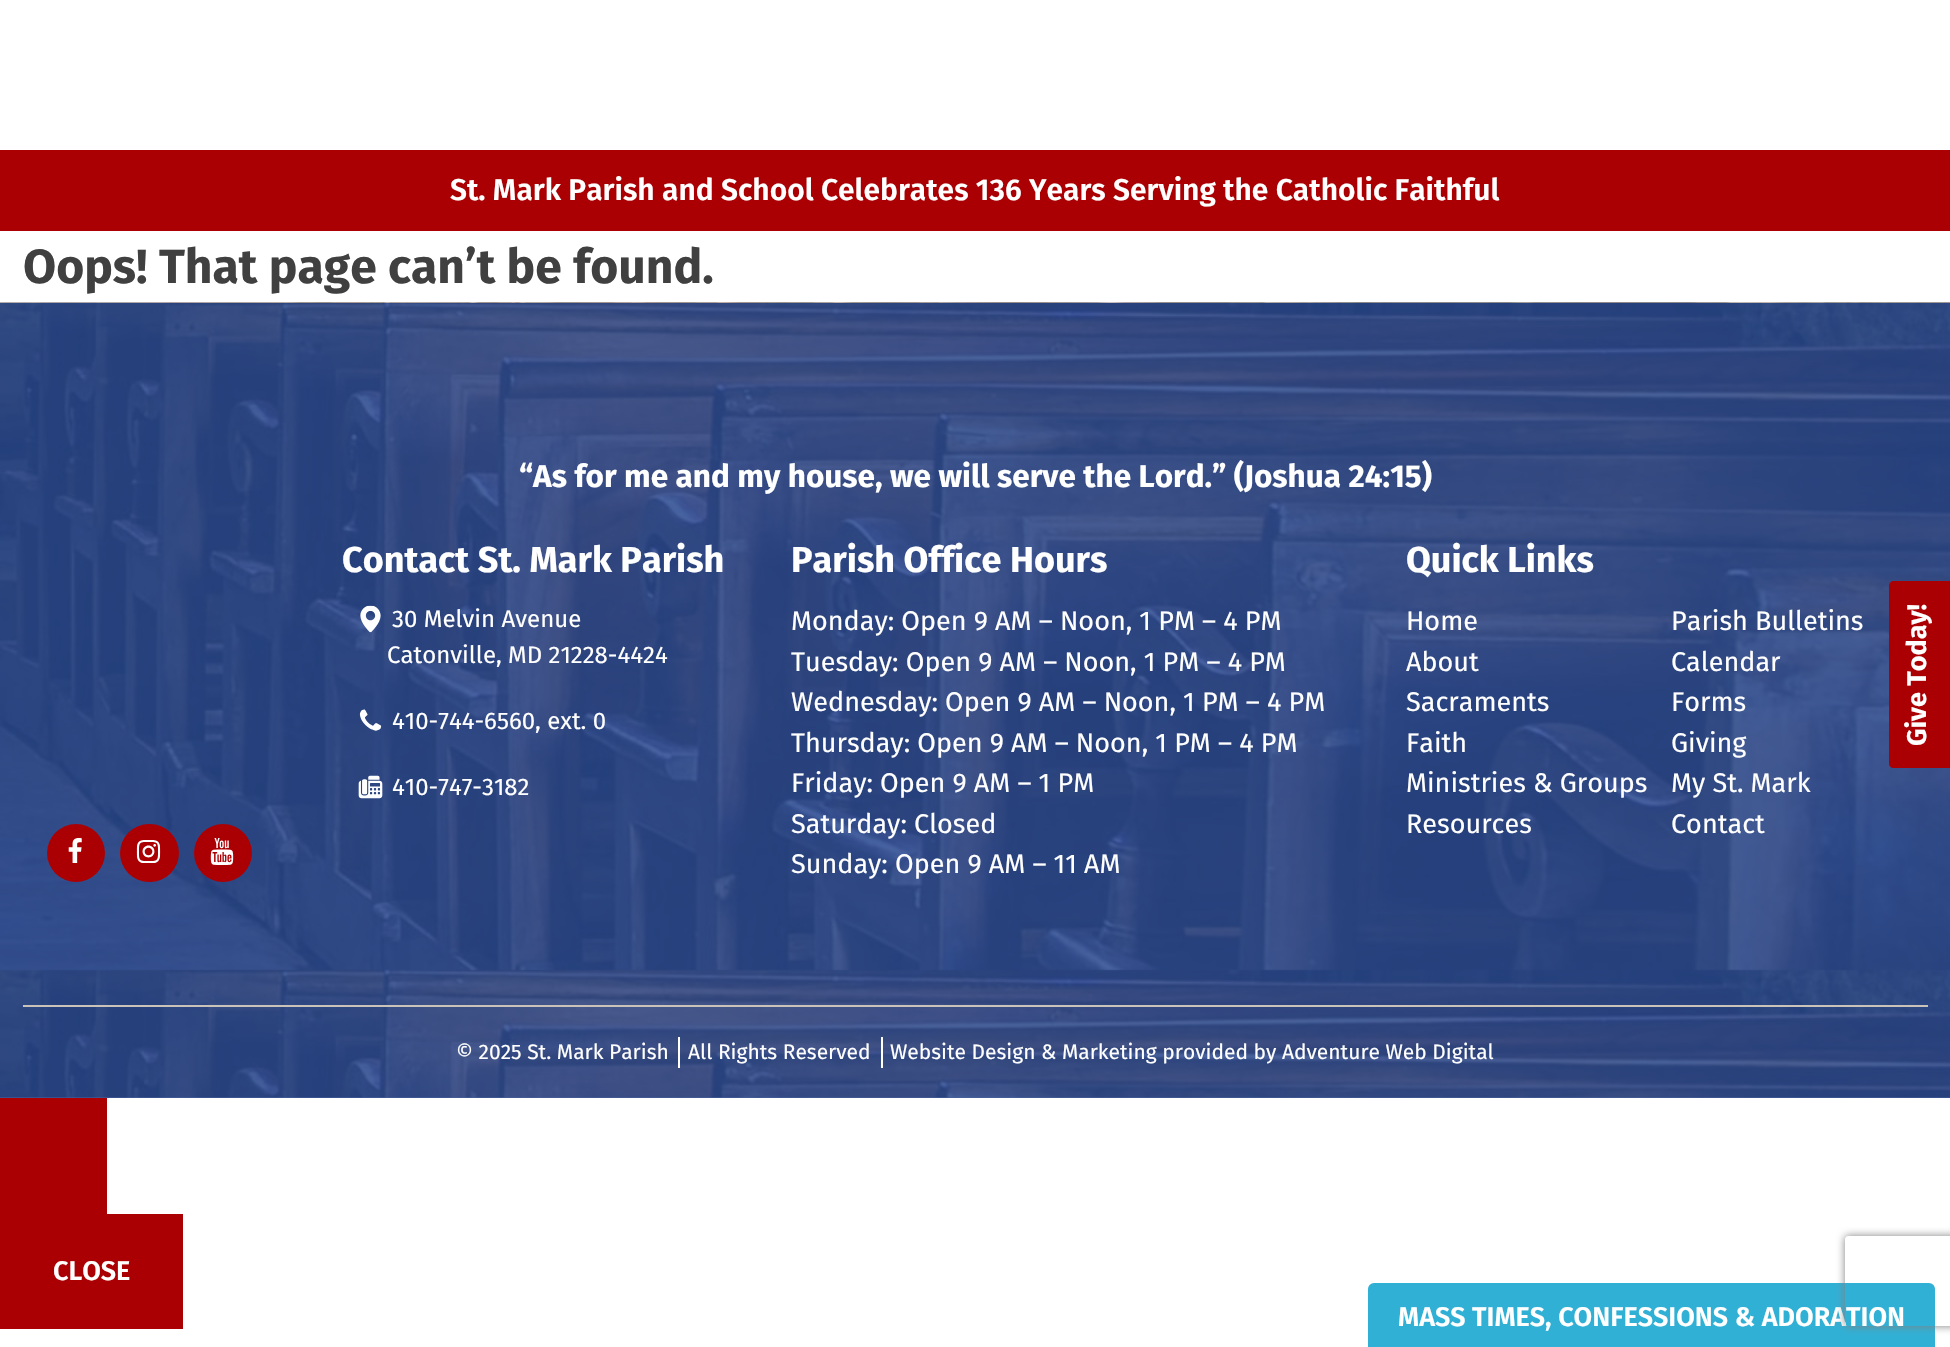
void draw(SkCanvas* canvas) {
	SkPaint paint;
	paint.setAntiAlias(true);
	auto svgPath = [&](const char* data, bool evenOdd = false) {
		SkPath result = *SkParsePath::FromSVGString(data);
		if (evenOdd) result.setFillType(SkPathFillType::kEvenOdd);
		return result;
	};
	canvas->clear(0xffffffff);
	paint.setColor(0xff4763a0);
	canvas->drawRect(SkRect::MakeXYWH(0, 1097, 1950, 1), paint);
	paint.setColor(0xffaa0003);
	canvas->drawRect(SkRect::MakeXYWH(0, 150, 1950, 81), paint);
	SkFont f1(fontMgr->matchFamilyStyle("Fira Sans", SkFontStyle(600, SkFontStyle::kNormal_Width, SkFontStyle::kUpright_Slant)), 30);
	f1.setSubpixel(true);
	paint.setColor(0xffffffff);
	canvas->drawString("St. Mark Parish and School Celebrates 136 Years Serving the Catholic Faithful", 450, 200, f1, paint);
	SkFont f2(fontMgr->matchFamilyStyle("Fira Sans", SkFontStyle::Bold()), 48);
	f2.setSubpixel(true);
	paint.setColor(0xff404040);
	canvas->drawString("Oops! That page can’t be found.", 23, 283, f2, paint);
	canvas->drawImageRect(SkImages::DeferredFromEncodedData(SkData::MakeFromFileName("img1.png")), SkRect::MakeXYWH(0, 302, 1950, 796), SkSamplingOptions());
	SkFont f3(fontMgr->matchFamilyStyle("Fira Sans", SkFontStyle::Bold()), 31.5);
	f3.setSubpixel(true);
	paint.setColor(0xffffffff);
	canvas->drawString("“As for me and my house, we will serve the Lord.” (Joshua 24:15)", 519, 487, f3, paint);
	SkFont f4(fontMgr->matchFamilyStyle("Fira Sans", SkFontStyle::Bold()), 36);
	f4.setSubpixel(true);
	canvas->drawString("Contact St. Mark Parish", 342, 572, f4, paint);
	canvas->drawImageRect(SkImages::DeferredFromEncodedData(SkData::MakeFromFileName("img2.png")), SkRect::MakeXYWH(360, 605, 21, 28), SkSamplingOptions());
	SkFont f5(fontMgr->matchFamilyStyle("Fira Sans", SkFontStyle::Normal()), 24);
	f5.setSubpixel(true);
	canvas->drawString("30 Melvin Avenue", 392, 627, f5, paint);
	canvas->drawString("Catonville, MD 21228-4424", 387, 663, f5, paint);
	canvas->drawImageRect(SkImages::DeferredFromEncodedData(SkData::MakeFromFileName("img3.png")), SkRect::MakeXYWH(359, 709, 23, 22), SkSamplingOptions());
	canvas->drawString("410-744-6560, ext. 0", 392, 729, f5, paint);
	canvas->drawImageRect(SkImages::DeferredFromEncodedData(SkData::MakeFromFileName("img4.png")), SkRect::MakeXYWH(358, 775, 25, 24), SkSamplingOptions());
	canvas->drawString("410-747-3182", 392, 795, f5, paint);
	canvas->drawString("Parish Office Hours", 791, 572, f4, paint);
	SkFont f6(fontMgr->matchFamilyStyle("Fira Sans", SkFontStyle::Normal()), 27);
	f6.setSubpixel(true);
	canvas->drawString("Monday: Open 9 AM – Noon, 1 PM – 4 PM", 791, 630, f6, paint);
	canvas->drawString("Tuesday: Open 9 AM – Noon, 1 PM – 4 PM", 791, 671, f6, paint);
	canvas->drawString("Wednesday: Open 9 AM – Noon, 1 PM – 4 PM", 791, 711, f6, paint);
	canvas->drawString("Thursday: Open 9 AM – Noon, 1 PM – 4 PM", 791, 752, f6, paint);
	canvas->drawString("Friday: Open 9 AM – 1 PM", 791, 792, f6, paint);
	canvas->drawString("Saturday: Closed", 791, 833, f6, paint);
	canvas->drawString("Sunday: Open 9 AM – 11 AM", 791, 873, f6, paint);
	canvas->drawString("Quick Links", 1406, 572, f4, paint);
	canvas->drawString("Home", 1406, 630, f6, paint);
	canvas->drawString("Parish Bulletins", 1671, 630, f6, paint);
	canvas->drawString("About", 1406, 671, f6, paint);
	canvas->drawString("Calendar", 1671, 671, f6, paint);
	canvas->drawString("Sacraments", 1406, 711, f6, paint);
	canvas->drawString("Forms", 1671, 711, f6, paint);
	canvas->drawString("Faith", 1406, 752, f6, paint);
	canvas->drawString("Giving", 1671, 752, f6, paint);
	canvas->drawString("Ministries & Groups", 1406, 792, f6, paint);
	canvas->drawString("My St. Mark", 1671, 792, f6, paint);
	canvas->drawString("Resources", 1406, 833, f6, paint);
	canvas->drawString("Contact", 1671, 833, f6, paint);
	paint.setColor(0xffaa0003);
	canvas->drawCircle(76, 853, 29, paint);
	canvas->drawImageRect(SkImages::DeferredFromEncodedData(SkData::MakeFromFileName("img5.png")), SkRect::MakeXYWH(68, 838, 14, 25), SkSamplingOptions());
	canvas->drawRoundRect(SkRect::MakeXYWH(120, 824, 59, 58), 29, 29, paint);
	canvas->drawImageRect(SkImages::DeferredFromEncodedData(SkData::MakeFromFileName("img6.png")), SkRect::MakeXYWH(136, 840, 25, 23), SkSamplingOptions());
	canvas->drawCircle(223, 853, 29, paint);
	canvas->drawImageRect(SkImages::DeferredFromEncodedData(SkData::MakeFromFileName("img7.png")), SkRect::MakeXYWH(210, 838, 24, 27), SkSamplingOptions());
	paint.setColor(0xffcac3b9);
	canvas->drawRect(SkRect::MakeXYWH(23, 1005, 1905, 2), paint);
	paint.setColor(0xffffffff);
	canvas->drawRect(SkRect::MakeXYWH(678, 1037, 2, 31), paint);
	SkFont f7(fontMgr->matchFamilyStyle("Fira Sans", SkFontStyle::Normal()), 21);
	f7.setSubpixel(true);
	canvas->drawString("© 2025 St. Mark Parish", 456, 1059, f7, paint);
	canvas->drawRect(SkRect::MakeXYWH(881, 1037, 2, 31), paint);
	canvas->drawString("All Rights Reserved", 688, 1059, f7, paint);
	canvas->drawString("Website Design & Marketing provided by Adventure Web Digital", 890, 1059, f7, paint);
	paint.setColor(0xff31b0d5);
	canvas->drawRoundRect(SkRect::MakeXYWH(1368, 1283, 567, 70), 6, 6, paint);
	SkFont f8(fontMgr->matchFamilyStyle("Fira Sans", SkFontStyle(600, SkFontStyle::kNormal_Width, SkFontStyle::kUpright_Slant)), 27);
	f8.setSubpixel(true);
	paint.setColor(0xffffffff);
	canvas->drawString("MASS TIMES, CONFESSIONS & ADORATION", 1398, 1326, f8, paint);
	paint.setColor(0xffaa0003);
	canvas->drawPath(svgPath("M1889 764V586C1889 583 1891 581 1893 581H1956V768H1893C1891 768 1889 766 1889 764Z"), paint);
	SkFont f9(fontMgr->matchFamilyStyle("Fira Sans", SkFontStyle::Bold()), 27);
	f9.setSubpixel(true);
	paint.setColor(0xffffffff);
	canvas->save();
	canvas->rotate(-90, 1926, 746);
	canvas->drawString("Give Today!", 1926, 746, f9, paint);
	canvas->restore();
	paint.setColor(0xffaa0003);
	canvas->drawRect(SkRect::MakeXYWH(0, 1098, 107, 116), paint);
	canvas->drawRect(SkRect::MakeXYWH(0, 1214, 183, 115), paint);
	paint.setColor(0xffffffff);
	canvas->drawString("CLOSE", 53, 1280, f8, paint);
	canvas->save();
	canvas->clipPath(svgPath("M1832 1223H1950V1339H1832ZM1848 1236H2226C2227.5 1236 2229 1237.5 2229 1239V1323C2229 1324.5 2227.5 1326 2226 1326H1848C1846.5 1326 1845 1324.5 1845 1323V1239C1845 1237.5 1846.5 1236 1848 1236Z", true), true);
	paint.setColor(0xff808080);
	paint.setMaskFilter(SkMaskFilter::MakeBlur(kNormal_SkBlurStyle, 4));
	canvas->drawRoundRect(SkRect::MakeXYWH(1845, 1236, 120, 90), 3, 3, paint);
	paint.setMaskFilter(nullptr);
	canvas->restore();
}
